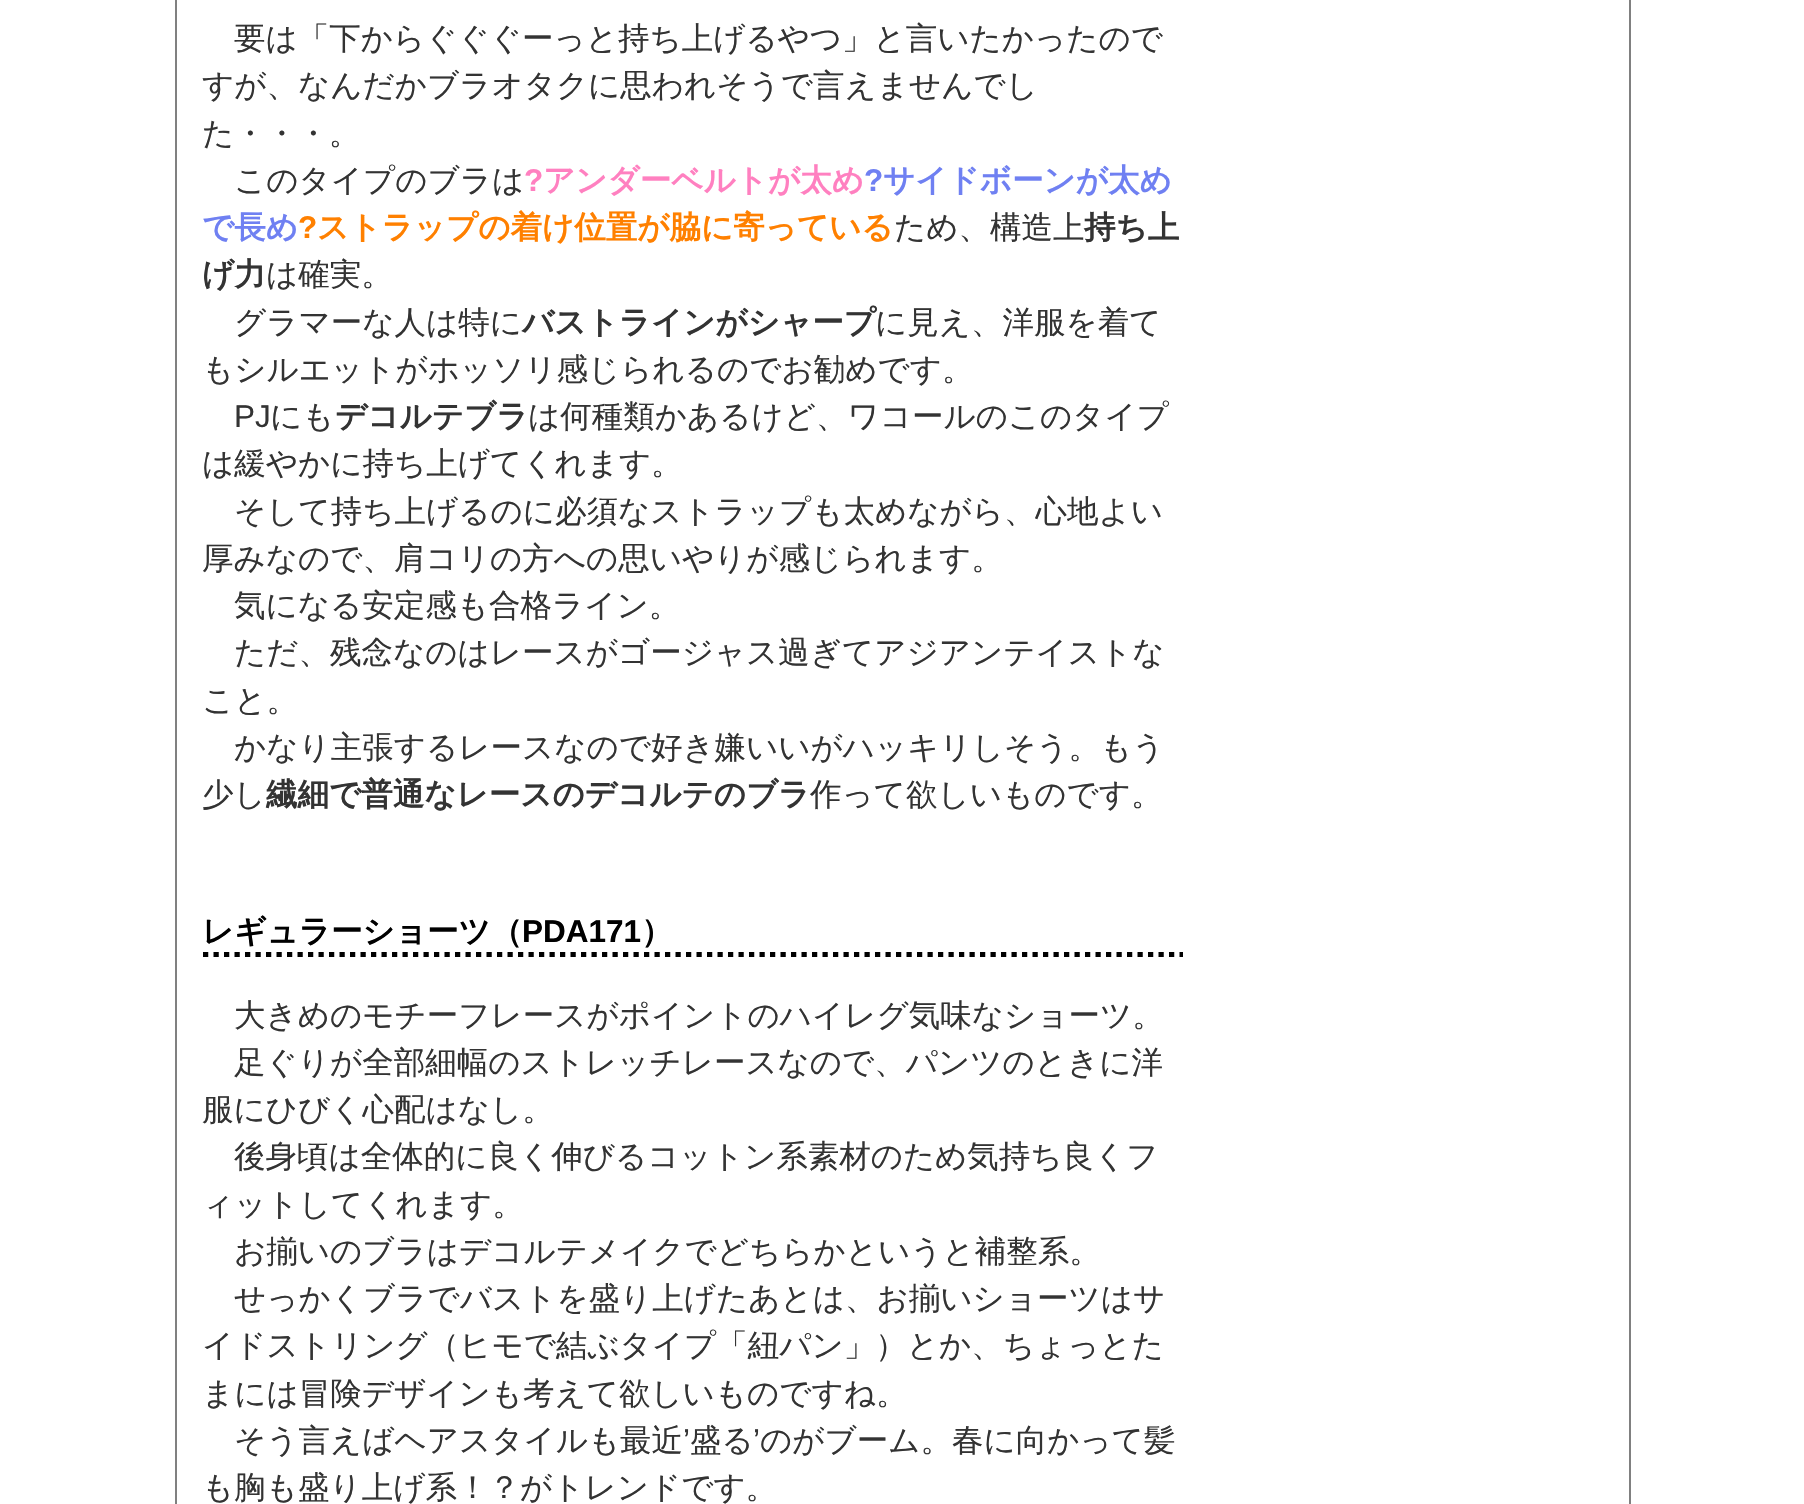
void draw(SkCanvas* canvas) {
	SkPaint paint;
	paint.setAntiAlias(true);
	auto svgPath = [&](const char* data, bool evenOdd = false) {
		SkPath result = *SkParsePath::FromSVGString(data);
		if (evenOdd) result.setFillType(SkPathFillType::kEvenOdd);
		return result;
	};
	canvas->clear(0xffffffff);
	paint.setColor(0xff808080);
	canvas->drawPath(svgPath("M1631-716V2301H1629V-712Z"), paint);
	canvas->drawPath(svgPath("M175 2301V-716L177-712V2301Z"), paint);
	SkFont f1(fontMgr->matchFamilyStyle("WenQuanYi Zen Hei", SkFontStyle(500, SkFontStyle::kNormal_Width, SkFontStyle::kUpright_Slant)), 31.5);
	f1.setSubpixel(true);
	paint.setColor(0xff333333);
	canvas->drawString("要は「下からぐぐぐーっと持ち上げるやつ」と言いたかったので", 234, 49, f1, paint);
	canvas->drawString("すが、なんだかブラオタクに思われそうで言えませんでし", 202, 96, f1, paint);
	canvas->drawString("た・・・。", 202, 144, f1, paint);
	canvas->drawString("このタイプのブラは", 234, 191, f1, paint);
	SkFont f2(fontMgr->matchFamilyStyle("Liberation Sans", SkFontStyle::Bold()), 31.5);
	f2.setSubpixel(true);
	paint.setColor(0xffff80c0);
	canvas->drawString("?", 524, 191, f2, paint);
	SkFont f3(fontMgr->matchFamilyStyle("WenQuanYi Zen Hei", SkFontStyle::Bold()), 31.5);
	f3.setSubpixel(true);
	canvas->drawString("アンダーベルトが太め", 543, 191, f3, paint);
	paint.setColor(0xff6f80f2);
	canvas->drawString("?", 864, 191, f2, paint);
	canvas->drawString("サイドボーンが太め", 883, 191, f3, paint);
	canvas->drawString("で長め", 202, 238, f3, paint);
	paint.setColor(0xffff8000);
	canvas->drawString("?", 298, 238, f2, paint);
	canvas->drawString("ストラップの着け位置が脇に寄っている", 317, 238, f3, paint);
	paint.setColor(0xff333333);
	canvas->drawString("ため、構造上", 894, 238, f1, paint);
	canvas->drawString("持ち上", 1084, 238, f3, paint);
	canvas->drawString("げ力", 202, 285, f3, paint);
	canvas->drawString("は確実。", 266, 285, f1, paint);
	canvas->drawString("グラマーな人は特に", 234, 333, f1, paint);
	canvas->drawString("バストラインがシャープ", 522, 333, f3, paint);
	canvas->drawString("に見え、洋服を着て", 875, 333, f1, paint);
	canvas->drawString("もシルエットがホッソリ感じられるのでお勧めです。", 202, 380, f1, paint);
	SkFont f4(fontMgr->matchFamilyStyle("Liberation Sans", SkFontStyle::Normal()), 31.5);
	f4.setSubpixel(true);
	canvas->drawString("PJ", 234, 427, f4, paint);
	canvas->drawString("にも", 270, 427, f1, paint);
	canvas->drawString("デコルテブラ", 335, 427, f3, paint);
	canvas->drawString("は何種類かあるけど、ワコールのこのタイプ", 528, 427, f1, paint);
	canvas->drawString("は緩やかに持ち上げてくれます。", 202, 474, f1, paint);
	canvas->drawString("そして持ち上げるのに必須なストラップも太めながら、心地よい", 234, 522, f1, paint);
	canvas->drawString("厚みなので、肩コリの方への思いやりが感じられます。", 202, 569, f1, paint);
	canvas->drawString("気になる安定感も合格ライン。", 234, 616, f1, paint);
	canvas->drawString("ただ、残念なのはレースがゴージャス過ぎてアジアンテイストな", 234, 663, f1, paint);
	canvas->drawString("こと。", 202, 711, f1, paint);
	canvas->drawString("かなり主張するレースなので好き嫌いいがハッキリしそう。もう", 234, 758, f1, paint);
	canvas->drawString("少し", 202, 805, f1, paint);
	canvas->drawString("繊細で普通なレースのデコルテのブラ", 266, 805, f3, paint);
	canvas->drawString("作って欲しいものです。", 810, 805, f1, paint);
	paint.setStroke(true);
	paint.setStrokeWidth(5.2);
	paint.setColor(0xff000000);
	paint.setPathEffect(SkDashPathEffect::Make({{5.25f, 5.25f}}, 0));
	canvas->drawPath(svgPath("M203 954.5H1183"), paint);
	paint.setPathEffect(nullptr);
	paint.setStroke(false);
	canvas->drawString("レギュラーショーツ（", 202, 942, f3, paint);
	canvas->drawString("PDA171", 522, 942, f2, paint);
	canvas->drawString("）", 641, 942, f3, paint);
	paint.setColor(0xff333333);
	canvas->drawString("大きめのモチーフレースがポイントのハイレグ気味なショーツ。", 234, 1026, f1, paint);
	canvas->drawString("足ぐりが全部細幅のストレッチレースなので、パンツのときに洋", 234, 1073, f1, paint);
	canvas->drawString("服にひびく心配はなし。", 202, 1120, f1, paint);
	canvas->drawString("後身頃は全体的に良く伸びるコットン系素材のため気持ち良くフ", 234, 1167, f1, paint);
	canvas->drawString("ィットしてくれます。", 202, 1215, f1, paint);
	canvas->drawString("お揃いのブラはデコルテメイクでどちらかというと補整系。", 234, 1262, f1, paint);
	canvas->drawString("せっかくブラでバストを盛り上げたあとは、お揃いショーツはサ", 234, 1309, f1, paint);
	canvas->drawString("イドストリング（ヒモで結ぶタイプ「紐パン」）とか、ちょっとた", 202, 1356, f1, paint);
	canvas->drawString("まには冒険デザインも考えて欲しいものですね。", 202, 1404, f1, paint);
	canvas->drawString("そう言えばヘアスタイルも最近", 234, 1451, f1, paint);
	canvas->drawString("’", 683, 1451, f4, paint);
	canvas->drawString("盛る", 690, 1451, f1, paint);
	canvas->drawString("’", 753, 1451, f4, paint);
	canvas->drawString("のがブーム。春に向かって髪", 760, 1451, f1, paint);
	canvas->drawString("も胸も盛り上げ系！？がトレンドです。", 202, 1498, f1, paint);
}
